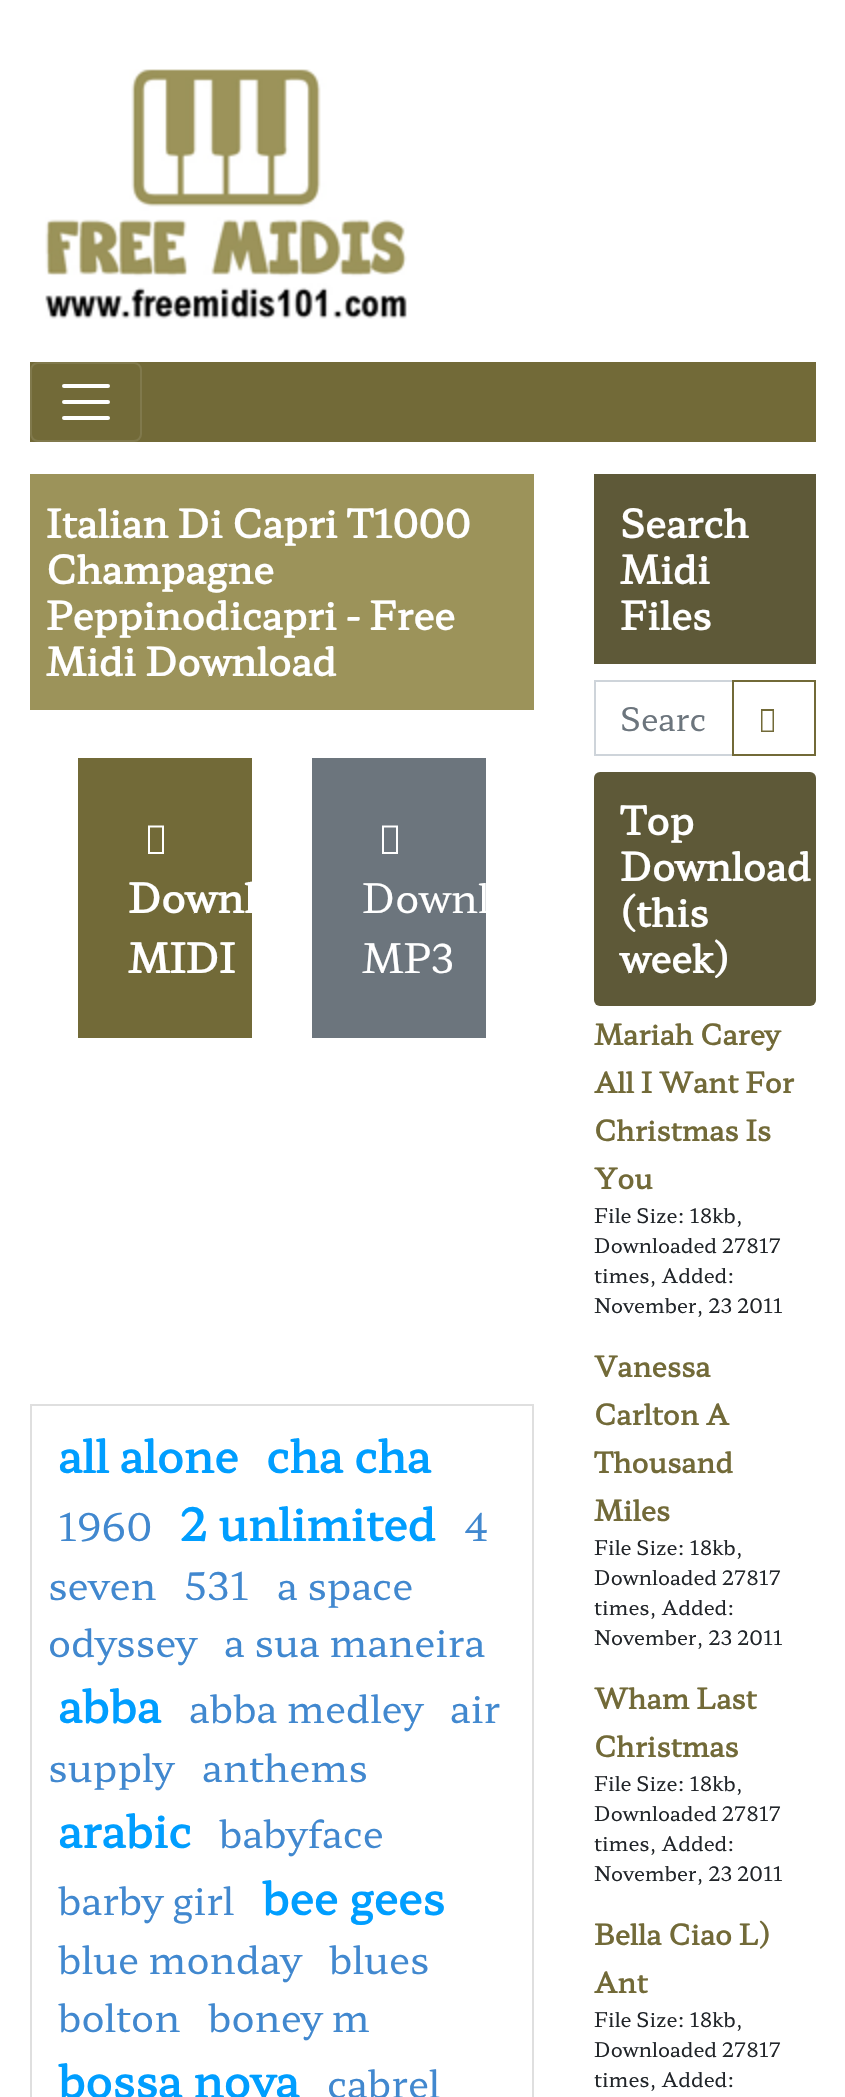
void draw(SkCanvas* canvas) {
	SkPaint paint;
	paint.setAntiAlias(true);
	auto svgPath = [&](const char* data, bool evenOdd = false) {
		SkPath result = *SkParsePath::FromSVGString(data);
		if (evenOdd) result.setFillType(SkPathFillType::kEvenOdd);
		return result;
	};
	canvas->clear(0xffffffff);
	canvas->drawImageRect(SkImages::DeferredFromEncodedData(SkData::MakeFromFileName("img1.png")), SkRect::MakeXYWH(45, 69, 362, 250), SkSamplingOptions());
	paint.setColor(0xff726a38);
	canvas->drawRect(SkRect::MakeXYWH(30, 362, 786, 80), paint);
	paint.setStroke(true);
	paint.setStrokeWidth(2);
	paint.setColor(0xff80794c);
	canvas->drawRoundRect(SkRect::MakeXYWH(31, 363, 110, 78), 7, 7, paint);
	paint.setStrokeWidth(4);
	paint.setStrokeCap(SkPaint::kRound_Cap);
	paint.setColor(0xffffffff);
	canvas->drawPath(svgPath("M64 386H108M64 402H108M64 418H108"), paint);
	paint.setStroke(false);
	paint.setColor(0xff9c935a);
	canvas->drawRect(SkRect::MakeXYWH(30, 474, 504, 236), paint);
	SkFont f1(fontMgr->matchFamilyStyle("Hahmlet", SkFontStyle::Bold()), 38.4);
	f1.setSubpixel(true);
	paint.setColor(0xffffffff);
	canvas->drawString("Italian Di Capri T1000", 46, 538, f1, paint);
	canvas->drawString("Champagne", 46, 584, f1, paint);
	canvas->drawString("Peppinodicapri - Free", 46, 630, f1, paint);
	canvas->drawString("Midi Download", 46, 676, f1, paint);
	paint.setColor(0xff726a38);
	canvas->drawRect(SkRect::MakeXYWH(78, 758, 174, 280), paint);
	paint.setColor(0xffffffff);
	canvas->drawPath(svgPath("M148 854V825.5H164V854ZM150 852H162V827.5H150Z"), paint);
	SkFont f2(fontMgr->matchFamilyStyle("Hahmlet", SkFontStyle::Bold()), 40);
	f2.setSubpixel(true);
	canvas->drawString("Downl", 128, 913, f2, paint);
	canvas->drawString("MIDI", 128, 973, f2, paint);
	paint.setColor(0xff6c757d);
	canvas->drawRect(SkRect::MakeXYWH(312, 758, 174, 280), paint);
	paint.setColor(0xffffffff);
	canvas->drawPath(svgPath("M382 854V825.5H398V854ZM384 852H396V827.5H384Z"), paint);
	SkFont f3(fontMgr->matchFamilyStyle("Hahmlet", SkFontStyle::Normal()), 40);
	f3.setSubpixel(true);
	canvas->drawString("Downl", 362, 913, f3, paint);
	canvas->drawString("MP3", 362, 973, f3, paint);
	paint.setStroke(true);
	paint.setStrokeWidth(2);
	paint.setStrokeCap(SkPaint::kButt_Cap);
	paint.setColor(0xffdfdfdf);
	canvas->drawRect(SkRect::MakeXYWH(31, 1405, 502, 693), paint);
	SkFont f4(fontMgr->matchFamilyStyle("Hahmlet", SkFontStyle::Bold()), 44.75);
	f4.setSubpixel(true);
	paint.setStroke(false);
	paint.setColor(0xff009eff);
	canvas->drawString("all alone", 58, 1473, f4, paint);
	canvas->drawString("cha cha", 266, 1473, f4, paint);
	SkFont f5(fontMgr->matchFamilyStyle("Hahmlet", SkFontStyle::Normal()), 38.4);
	f5.setSubpixel(true);
	paint.setColor(0xff4188cf);
	canvas->drawString("1960", 58, 1541, f5, paint);
	paint.setColor(0xff009eff);
	canvas->drawString("2 unlimited", 180, 1541, f4, paint);
	paint.setColor(0xff4188cf);
	canvas->drawString("4", 464, 1541, f5, paint);
	canvas->drawString("seven", 48, 1600, f5, paint);
	canvas->drawString("531", 184, 1600, f5, paint);
	canvas->drawString("a space", 277, 1600, f5, paint);
	canvas->drawString("odyssey", 48, 1657, f5, paint);
	canvas->drawString("a sua maneira", 224, 1657, f5, paint);
	paint.setColor(0xff009eff);
	canvas->drawString("abba", 58, 1723, f4, paint);
	paint.setColor(0xff4188cf);
	canvas->drawString("abba medley", 189, 1723, f5, paint);
	canvas->drawString("air", 450, 1723, f5, paint);
	canvas->drawString("supply", 48, 1782, f5, paint);
	canvas->drawString("anthems", 202, 1782, f5, paint);
	paint.setColor(0xff009eff);
	canvas->drawString("arabic", 58, 1848, f4, paint);
	paint.setColor(0xff4188cf);
	canvas->drawString("babyface", 219, 1848, f5, paint);
	canvas->drawString("barby girl", 58, 1915, f5, paint);
	paint.setColor(0xff009eff);
	canvas->drawString("bee gees", 262, 1915, f4, paint);
	paint.setColor(0xff4188cf);
	canvas->drawString("blue monday", 58, 1974, f5, paint);
	canvas->drawString("blues", 329, 1974, f5, paint);
	canvas->drawString("bolton", 58, 2032, f5, paint);
	canvas->drawString("boney m", 208, 2032, f5, paint);
	paint.setColor(0xff009eff);
	canvas->drawString("bossa nova", 58, 2098, f4, paint);
	paint.setColor(0xff4188cf);
	canvas->drawString("cabrel", 327, 2098, f5, paint);
	paint.setColor(0xff5e5938);
	canvas->drawRect(SkRect::MakeXYWH(594, 474, 222, 190), paint);
	paint.setColor(0xffffffff);
	canvas->drawString("Search", 620, 538, f1, paint);
	canvas->drawString("Midi", 620, 584, f1, paint);
	canvas->drawString("Files", 620, 630, f1, paint);
	paint.setStroke(true);
	paint.setColor(0xffced4da);
	canvas->drawRect(SkRect::MakeXYWH(595, 681, 138, 74), paint);
	SkFont f6(fontMgr->matchFamilyStyle("Hahmlet", SkFontStyle::Normal()), 32);
	f6.setSubpixel(true);
	paint.setStroke(false);
	paint.setColor(0xff6c757d);
	canvas->drawString("Searc", 620, 731, f6, paint);
	paint.setStroke(true);
	paint.setColor(0xff726a38);
	canvas->drawRect(SkRect::MakeXYWH(733, 681, 82, 74), paint);
	paint.setStroke(false);
	canvas->drawPath(svgPath("M761 732V709H774V732ZM762.5 730.5H772.5V711H762.5Z"), paint);
	paint.setColor(0xff5e5938);
	canvas->drawRoundRect(SkRect::MakeXYWH(594, 772, 222, 234), 6, 6, paint);
	paint.setColor(0xffffffff);
	canvas->drawString("Top", 620, 835, f1, paint);
	canvas->drawString("Download", 620, 881, f1, paint);
	canvas->drawString("(this", 620, 927, f1, paint);
	canvas->drawString("week)", 620, 973, f1, paint);
	SkFont f7(fontMgr->matchFamilyStyle("Hahmlet", SkFontStyle::Bold()), 28);
	f7.setSubpixel(true);
	paint.setColor(0xff726a38);
	canvas->drawString("Mariah Carey", 594, 1045, f7, paint);
	canvas->drawString("All I Want For", 594, 1093, f7, paint);
	canvas->drawString("Christmas Is", 594, 1141, f7, paint);
	canvas->drawString("You", 594, 1189, f7, paint);
	SkFont f8(fontMgr->matchFamilyStyle("Hahmlet", SkFontStyle::Normal()), 20);
	f8.setSubpixel(true);
	paint.setColor(0xff212529);
	canvas->drawString("File Size: 18kb,", 594, 1223, f8, paint);
	canvas->drawString("Downloaded 27817", 594, 1253, f8, paint);
	canvas->drawString("times, Added:", 594, 1283, f8, paint);
	canvas->drawString("November, 23 2011", 594, 1313, f8, paint);
	paint.setColor(0xff726a38);
	canvas->drawString("Vanessa", 594, 1377, f7, paint);
	canvas->drawString("Carlton A", 594, 1425, f7, paint);
	canvas->drawString("Thousand", 594, 1473, f7, paint);
	canvas->drawString("Miles", 594, 1521, f7, paint);
	paint.setColor(0xff212529);
	canvas->drawString("File Size: 18kb,", 594, 1555, f8, paint);
	canvas->drawString("Downloaded 27817", 594, 1585, f8, paint);
	canvas->drawString("times, Added:", 594, 1615, f8, paint);
	canvas->drawString("November, 23 2011", 594, 1645, f8, paint);
	paint.setColor(0xff726a38);
	canvas->drawString("Wham Last", 594, 1709, f7, paint);
	canvas->drawString("Christmas", 594, 1757, f7, paint);
	paint.setColor(0xff212529);
	canvas->drawString("File Size: 18kb,", 594, 1791, f8, paint);
	canvas->drawString("Downloaded 27817", 594, 1821, f8, paint);
	canvas->drawString("times, Added:", 594, 1851, f8, paint);
	canvas->drawString("November, 23 2011", 594, 1881, f8, paint);
	paint.setColor(0xff726a38);
	canvas->drawString("Bella Ciao L)", 594, 1945, f7, paint);
	canvas->drawString("Ant", 594, 1993, f7, paint);
	paint.setColor(0xff212529);
	canvas->drawString("File Size: 18kb,", 594, 2027, f8, paint);
	canvas->drawString("Downloaded 27817", 594, 2057, f8, paint);
	canvas->drawString("times, Added:", 594, 2087, f8, paint);
}
